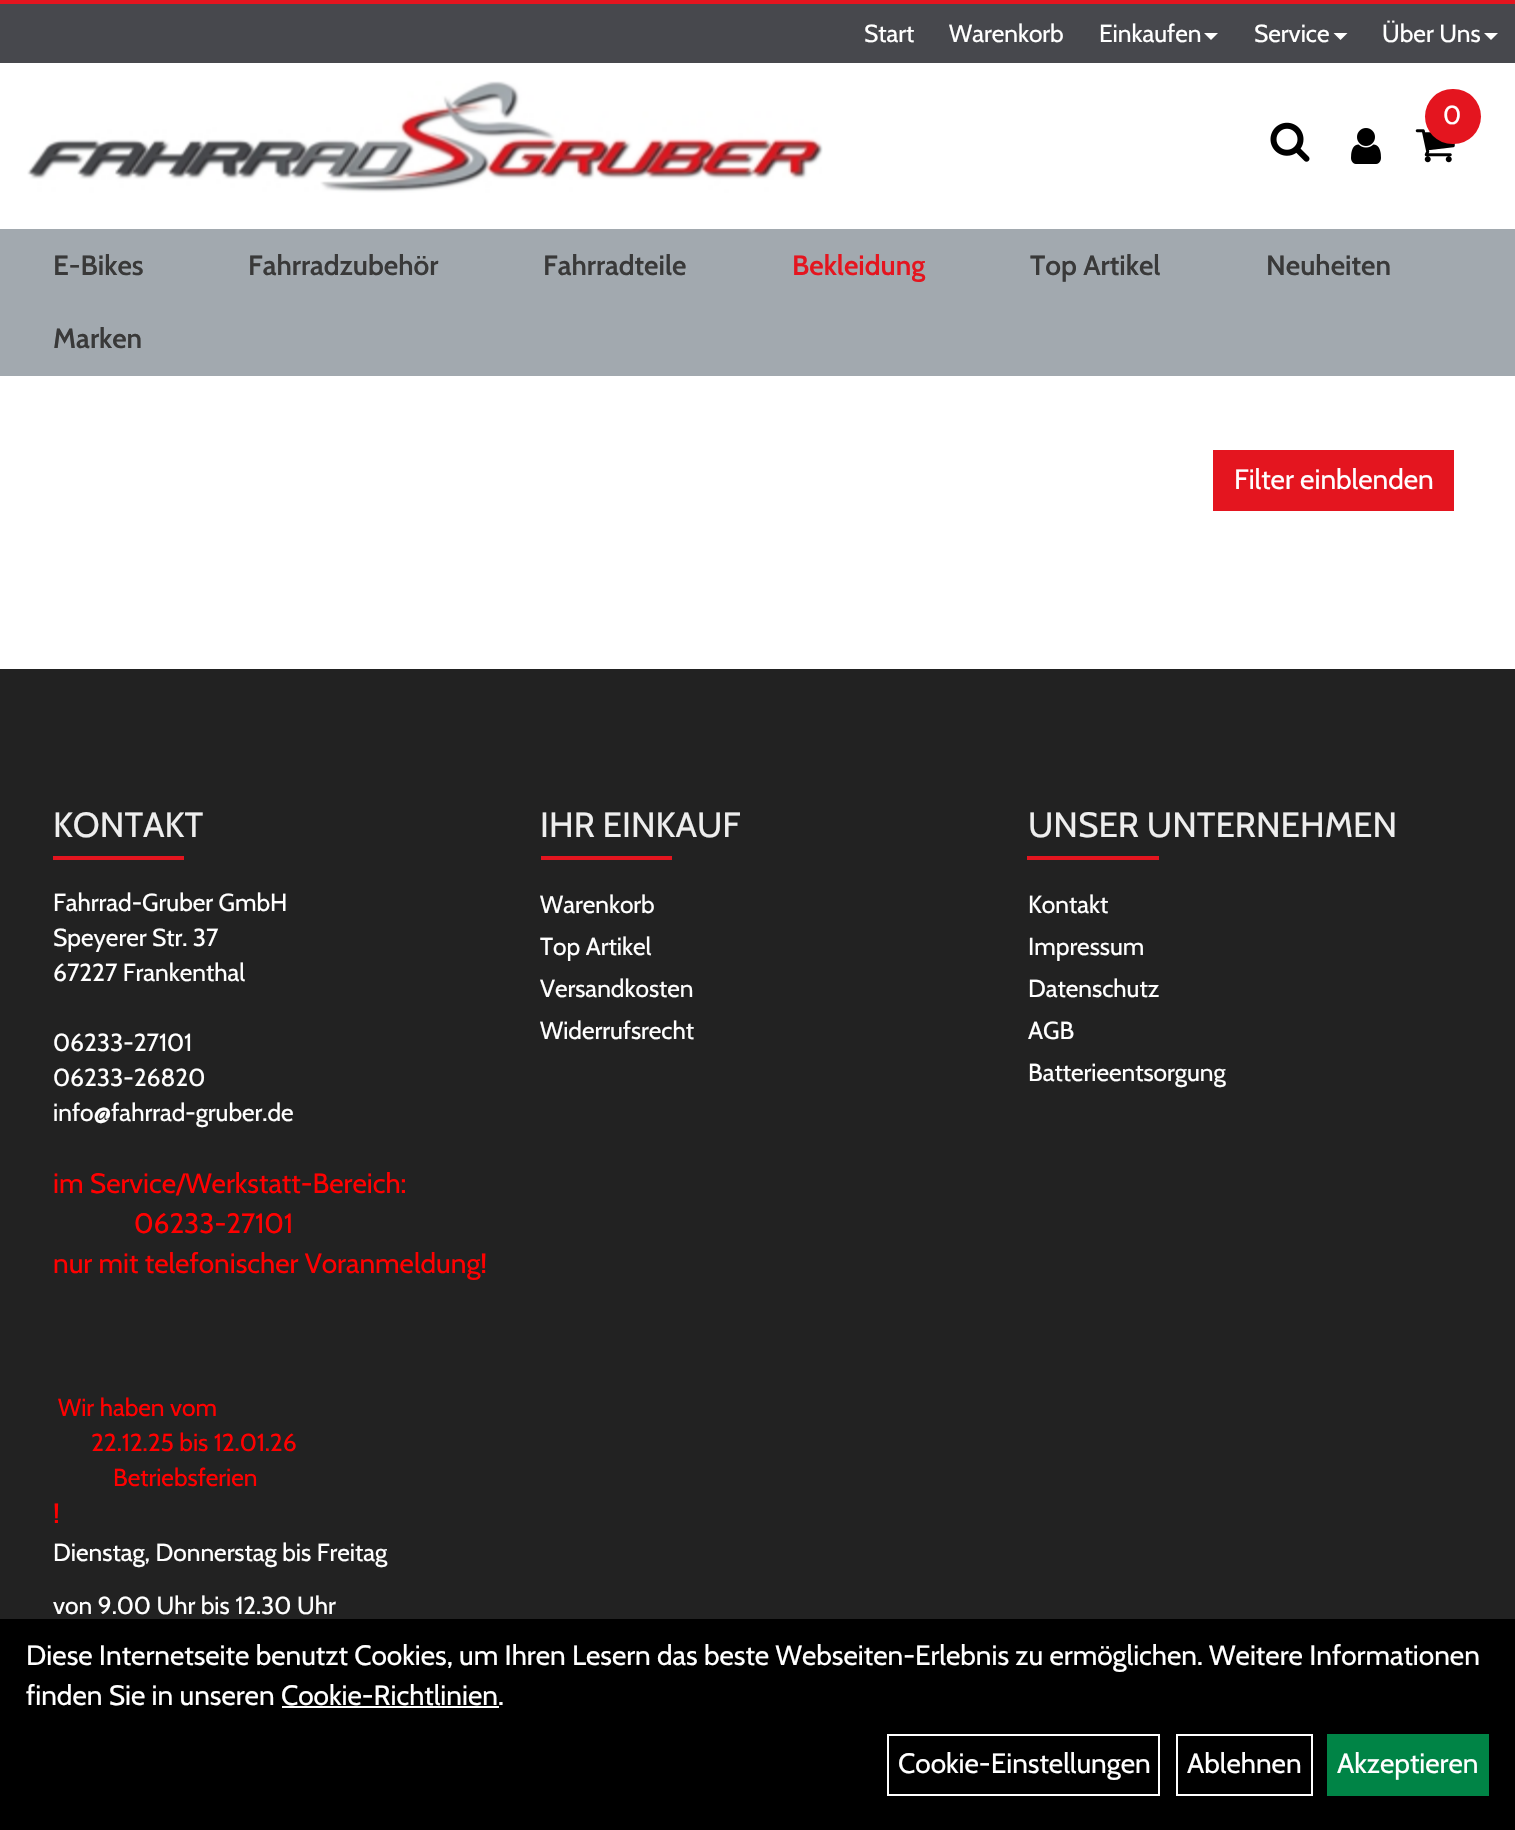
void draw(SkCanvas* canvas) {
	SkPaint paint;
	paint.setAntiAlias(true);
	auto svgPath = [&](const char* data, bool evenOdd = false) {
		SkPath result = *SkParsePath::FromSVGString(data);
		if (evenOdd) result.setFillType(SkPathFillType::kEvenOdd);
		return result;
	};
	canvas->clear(0xffffffff);
	paint.setColor(0xff47484d);
	canvas->drawRect(SkRect::MakeXYWH(0, 4, 1515, 59), paint);
	paint.setColor(0xffe4151f);
	canvas->drawRect(SkRect::MakeXYWH(0, 0, 1515, 4), paint);
	SkFont f1(fontMgr->matchFamilyStyle("Cabin", SkFontStyle::Normal()), 24.5);
	f1.setSubpixel(true);
	paint.setColor(0xffffffff);
	canvas->drawString("Start", 864, 42, f1, paint);
	canvas->drawString("Warenkorb", 949, 42, f1, paint);
	canvas->drawString("Einkaufen", 1099, 42, f1, paint);
	canvas->drawPath(svgPath("M1204 33H1218L1211 40Z"), paint);
	canvas->drawString("Service", 1254, 42, f1, paint);
	canvas->drawPath(svgPath("M1333.5 33H1347.5L1340.5 40Z"), paint);
	canvas->drawString("Über Uns", 1382, 42, f1, paint);
	canvas->drawPath(svgPath("M1484 33H1498L1491 40Z"), paint);
	canvas->drawImageRect(SkImages::DeferredFromEncodedData(SkData::MakeFromFileName("img1.png")), SkRect::MakeXYWH(27, 81, 796, 112), SkSamplingOptions());
	canvas->drawImageRect(SkImages::DeferredFromEncodedData(SkData::MakeFromFileName("img2.png")), SkRect::MakeXYWH(1415, 129, 40, 34), SkSamplingOptions());
	paint.setColor(0xffe4151f);
	canvas->drawRoundRect(SkRect::MakeXYWH(1425, 89, 56, 55), 27.5, 27.5, paint);
	SkFont f2(fontMgr->matchFamilyStyle("Cabin", SkFontStyle::Normal()), 26);
	f2.setSubpixel(true);
	paint.setColor(0xffffffff);
	canvas->drawString("0", 1443, 124, f2, paint);
	canvas->drawImageRect(SkImages::DeferredFromEncodedData(SkData::MakeFromFileName("img3.png")), SkRect::MakeXYWH(1270, 122, 40, 40), SkSamplingOptions());
	canvas->drawImageRect(SkImages::DeferredFromEncodedData(SkData::MakeFromFileName("img4.png")), SkRect::MakeXYWH(1351, 128, 30, 36), SkSamplingOptions());
	paint.setColor(0xffa2a9af);
	canvas->drawRect(SkRect::MakeXYWH(0, 229, 1515, 147), paint);
	SkFont f3(fontMgr->matchFamilyStyle("Cabin", SkFontStyle(600, SkFontStyle::kNormal_Width, SkFontStyle::kUpright_Slant)), 28);
	f3.setSubpixel(true);
	paint.setColor(0xff393939);
	canvas->drawString("E-Bikes", 53, 275, f3, paint);
	canvas->drawString("Fahrradzubehör", 248, 275, f3, paint);
	canvas->drawString("Fahrradteile", 543, 275, f3, paint);
	paint.setColor(0xffe4151f);
	canvas->drawString("Bekleidung", 792, 275, f3, paint);
	paint.setColor(0xff393939);
	canvas->drawString("Top Artikel", 1030, 275, f3, paint);
	canvas->drawString("Neuheiten", 1266, 275, f3, paint);
	canvas->drawString("Marken", 53, 348, f3, paint);
	paint.setColor(0xffe4151f);
	canvas->drawRect(SkRect::MakeXYWH(1213, 450, 241, 61), paint);
	SkFont f4(fontMgr->matchFamilyStyle("Cabin", SkFontStyle::Normal()), 28);
	f4.setSubpixel(true);
	paint.setColor(0xffffffff);
	canvas->drawString("Filter einblenden", 1234, 489, f4, paint);
	paint.setColor(0xff222222);
	canvas->drawRect(SkRect::MakeXYWH(0, 669, 1515, 950), paint);
	SkFont f5(fontMgr->matchFamilyStyle("Cabin", SkFontStyle::Normal()), 35);
	f5.setSubpixel(true);
	paint.setColor(0xffeeeeee);
	canvas->drawString("KONTAKT", 53, 837, f5, paint);
	paint.setColor(0xffe4151f);
	canvas->drawRect(SkRect::MakeXYWH(53, 856, 131, 4), paint);
	paint.setColor(0xffffffff);
	canvas->drawString("Fahrrad-Gruber GmbH", 53, 911, f1, paint);
	canvas->drawString("Speyerer Str. 37", 53, 946, f1, paint);
	canvas->drawString("67227 Frankenthal", 53, 981, f1, paint);
	canvas->drawString("06233-27101", 53, 1051, f1, paint);
	canvas->drawString("06233-26820", 53, 1086, f1, paint);
	canvas->drawString("info@fahrrad-gruber.de", 53, 1121, f1, paint);
	paint.setColor(0xffff0000);
	canvas->drawString("im Service/Werkstatt-Bereich:", 53, 1193, f4, paint);
	canvas->drawString("06233-27101", 134, 1233, f4, paint);
	canvas->drawString("nur mit telefonischer Voranmeldung!", 53, 1273, f4, paint);
	canvas->drawString("Wir haben vom", 58, 1416, f1, paint);
	canvas->drawString("22.12.25 bis 12.01.26", 91, 1451, f1, paint);
	canvas->drawString("Betriebsferien", 113, 1486, f1, paint);
	canvas->drawString("!", 53, 1523, f4, paint);
	paint.setColor(0xffffffff);
	canvas->drawString("Dienstag, Donnerstag bis Freitag", 53, 1561, f1, paint);
	canvas->drawString("von 9.00 Uhr bis 12.30 Uhr", 53, 1614, f1, paint);
	paint.setColor(0xffeeeeee);
	canvas->drawString("IHR EINKAUF", 540, 837, f5, paint);
	paint.setColor(0xffe4151f);
	canvas->drawRect(SkRect::MakeXYWH(541, 856, 131, 4), paint);
	paint.setColor(0xffffffff);
	canvas->drawString("Warenkorb", 540, 913, f1, paint);
	canvas->drawString("Top Artikel", 540, 955, f1, paint);
	canvas->drawString("Versandkosten", 540, 997, f1, paint);
	canvas->drawString("Widerrufsrecht", 540, 1039, f1, paint);
	paint.setColor(0xffeeeeee);
	canvas->drawString("UNSER UNTERNEHMEN", 1028, 837, f5, paint);
	paint.setColor(0xffe4151f);
	canvas->drawRect(SkRect::MakeXYWH(1027, 856, 132, 4), paint);
	paint.setColor(0xffffffff);
	canvas->drawString("Kontakt", 1028, 913, f1, paint);
	canvas->drawString("Impressum", 1028, 955, f1, paint);
	canvas->drawString("Datenschutz", 1028, 997, f1, paint);
	canvas->drawString("AGB", 1028, 1039, f1, paint);
	canvas->drawString("Batterieentsorgung", 1028, 1081, f1, paint);
	paint.setColor(0xff000000);
	canvas->drawRect(SkRect::MakeXYWH(0, 1619, 1515, 211), paint);
	paint.setColor(0xffffffff);
	canvas->drawString("Diese Internetseite benutzt Cookies, um Ihren Lesern das beste Webseiten-Erlebnis zu ermöglichen. Weitere Informationen", 26, 1665, f4, paint);
	canvas->drawString("finden Sie in unseren Cookie-Richtlinien.", 26, 1705, f4, paint);
	canvas->drawRect(SkRect::MakeXYWH(282, 1706, 217, 2), paint);
	paint.setStroke(true);
	paint.setStrokeWidth(2);
	canvas->drawRect(SkRect::MakeXYWH(888, 1735, 271, 60), paint);
	paint.setStroke(false);
	canvas->drawString("Cookie-Einstellungen", 898, 1773, f4, paint);
	paint.setStroke(true);
	canvas->drawRect(SkRect::MakeXYWH(1177, 1735, 135, 60), paint);
	paint.setStroke(false);
	canvas->drawString("Ablehnen", 1187, 1773, f4, paint);
	paint.setColor(0xff008446);
	canvas->drawRect(SkRect::MakeXYWH(1327, 1734, 162, 62), paint);
	paint.setColor(0xffffffff);
	canvas->drawString("Akzeptieren", 1337, 1773, f4, paint);
}
